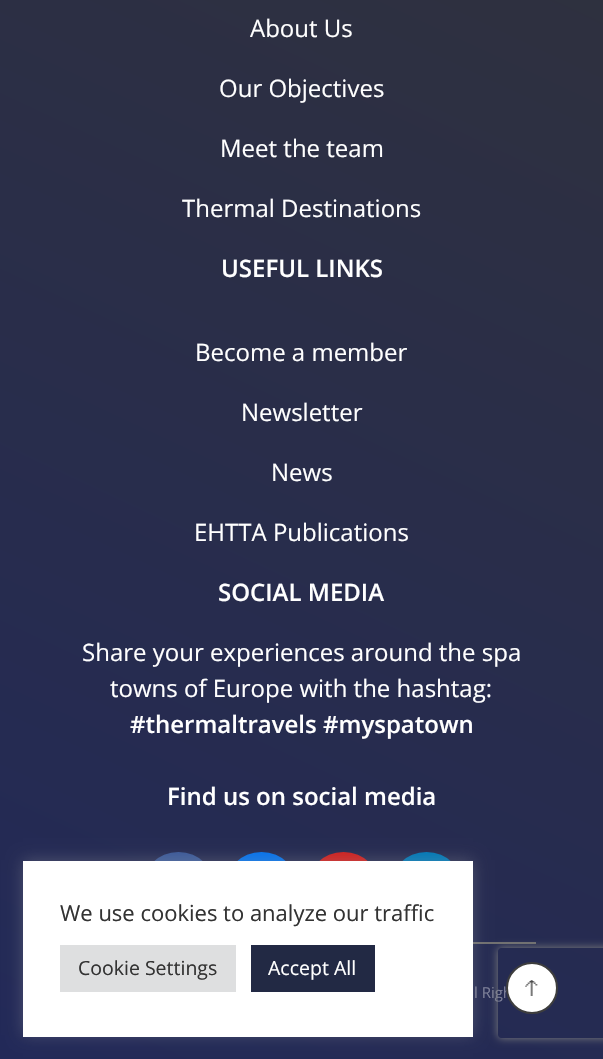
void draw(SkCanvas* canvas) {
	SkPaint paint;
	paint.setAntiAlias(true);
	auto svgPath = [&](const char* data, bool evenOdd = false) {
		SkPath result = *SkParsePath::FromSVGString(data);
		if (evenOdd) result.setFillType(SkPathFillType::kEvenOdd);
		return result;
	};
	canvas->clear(0xffffffff);
	{
		const SkColor colors[] = {0xff222958, 0xff343434};
		const float stops[] = {0, 1};
		const SkPoint ends[] = {{-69, 1027}, {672, -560}};
		paint.setShader(SkGradientShader::MakeLinear(ends, colors, stops, 2, SkTileMode::kClamp));
		paint.setAlpha(255);
	}
	canvas->drawRect(SkRect::MakeXYWH(0, 0, 603, 1059), paint);
	SkFont f1(fontMgr->matchFamilyStyle("Open Sans", SkFontStyle::Normal()), 24);
	f1.setSubpixel(true);
	paint.setShader(nullptr);
	paint.setColor(0xffffffff);
	canvas->drawString("About Us", 250, 37, f1, paint);
	canvas->drawString("Our Objectives", 219, 97, f1, paint);
	canvas->drawString("Meet the team", 220, 157, f1, paint);
	canvas->drawString("Thermal Destinations", 182, 217, f1, paint);
	SkFont f2(fontMgr->matchFamilyStyle("Open Sans", SkFontStyle(600, SkFontStyle::kNormal_Width, SkFontStyle::kUpright_Slant)), 24);
	f2.setSubpixel(true);
	canvas->drawString("USEFUL LINKS", 221, 277, f2, paint);
	canvas->drawString("Become a member", 195, 361, f1, paint);
	canvas->drawString("Newsletter", 241, 421, f1, paint);
	canvas->drawString("News", 271, 481, f1, paint);
	canvas->drawString("EHTTA Publications", 194, 541, f1, paint);
	canvas->drawString("SOCIAL MEDIA", 218, 601, f2, paint);
	canvas->drawString("Share your experiences around the spa", 82, 661, f1, paint);
	canvas->drawString("towns of Europe with the hashtag:", 110, 697, f1, paint);
	canvas->drawString("#thermaltravels #myspatown", 130, 733, f2, paint);
	canvas->drawString("Find us on social media", 167, 805, f2, paint);
	paint.setColor(0xff3b5998);
	canvas->drawCircle(178.5, 889.5, 37.5, paint);
	paint.setColor(0xff0471ea);
	canvas->drawCircle(261.5, 889.5, 37.5, paint);
	paint.setColor(0xffcd201f);
	canvas->drawCircle(343.5, 889.5, 37.5, paint);
	paint.setColor(0xff0077b5);
	canvas->drawCircle(426.5, 889.5, 37.5, paint);
	paint.setColor(0xff707070);
	canvas->drawRect(SkRect::MakeXYWH(473, 942, 63, 2), paint);
	SkFont f3(fontMgr->matchFamilyStyle("Open Sans", SkFontStyle::Normal()), 15);
	f3.setSubpixel(true);
	paint.setColor(0xff7c7f98);
	canvas->drawString("l Righ", 474, 998, f3, paint);
	paint.setColor(0x4dacabab);
	paint.setMaskFilter(SkMaskFilter::MakeBlur(kNormal_SkBlurStyle, 7.5));
	canvas->drawRect(SkRect::MakeXYWH(23, 860, 450, 175), paint);
	paint.setMaskFilter(nullptr);
	paint.setColor(0xffffffff);
	canvas->drawRect(SkRect::MakeXYWH(23, 861, 450, 176), paint);
	SkFont f4(fontMgr->matchFamilyStyle("Open Sans", SkFontStyle::Normal()), 22);
	f4.setSubpixel(true);
	paint.setColor(0xff333333);
	canvas->drawString("We use cookies to analyze our traffic", 60, 921, f4, paint);
	paint.setColor(0xffdedfe0);
	canvas->drawRect(SkRect::MakeXYWH(60, 945, 176, 47), paint);
	SkFont f5(fontMgr->matchFamilyStyle("Open Sans", SkFontStyle::Normal()), 19.5);
	f5.setSubpixel(true);
	paint.setColor(0xff333333);
	canvas->drawString("Cookie Settings", 78, 975, f5, paint);
	paint.setColor(0xff222944);
	canvas->drawRect(SkRect::MakeXYWH(251, 945, 124, 47), paint);
	paint.setColor(0xffffffff);
	canvas->drawString("Accept All", 268, 975, f5, paint);
	canvas->save();
	canvas->clipPath(svgPath("M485 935H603V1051H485ZM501 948H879C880.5 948 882 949.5 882 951V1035C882 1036.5 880.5 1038 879 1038H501C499.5 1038 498 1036.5 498 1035V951C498 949.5 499.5 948 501 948Z", true), true);
	paint.setColor(0xff808080);
	paint.setMaskFilter(SkMaskFilter::MakeBlur(kNormal_SkBlurStyle, 4));
	canvas->drawRoundRect(SkRect::MakeXYWH(498, 948, 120, 90), 3, 3, paint);
	paint.setMaskFilter(nullptr);
	canvas->restore();
	paint.setColor(0xffffffff);
	canvas->drawCircle(532, 988, 25, paint);
	paint.setStroke(true);
	paint.setStrokeWidth(2);
	paint.setColor(0xff3d3d3d);
	canvas->drawCircle(532, 988, 25, paint);
	canvas->drawImageRect(SkImages::DeferredFromEncodedData(SkData::MakeFromFileName("img1.png")), SkRect::MakeXYWH(525, 980, 13, 16), SkSamplingOptions());
}
